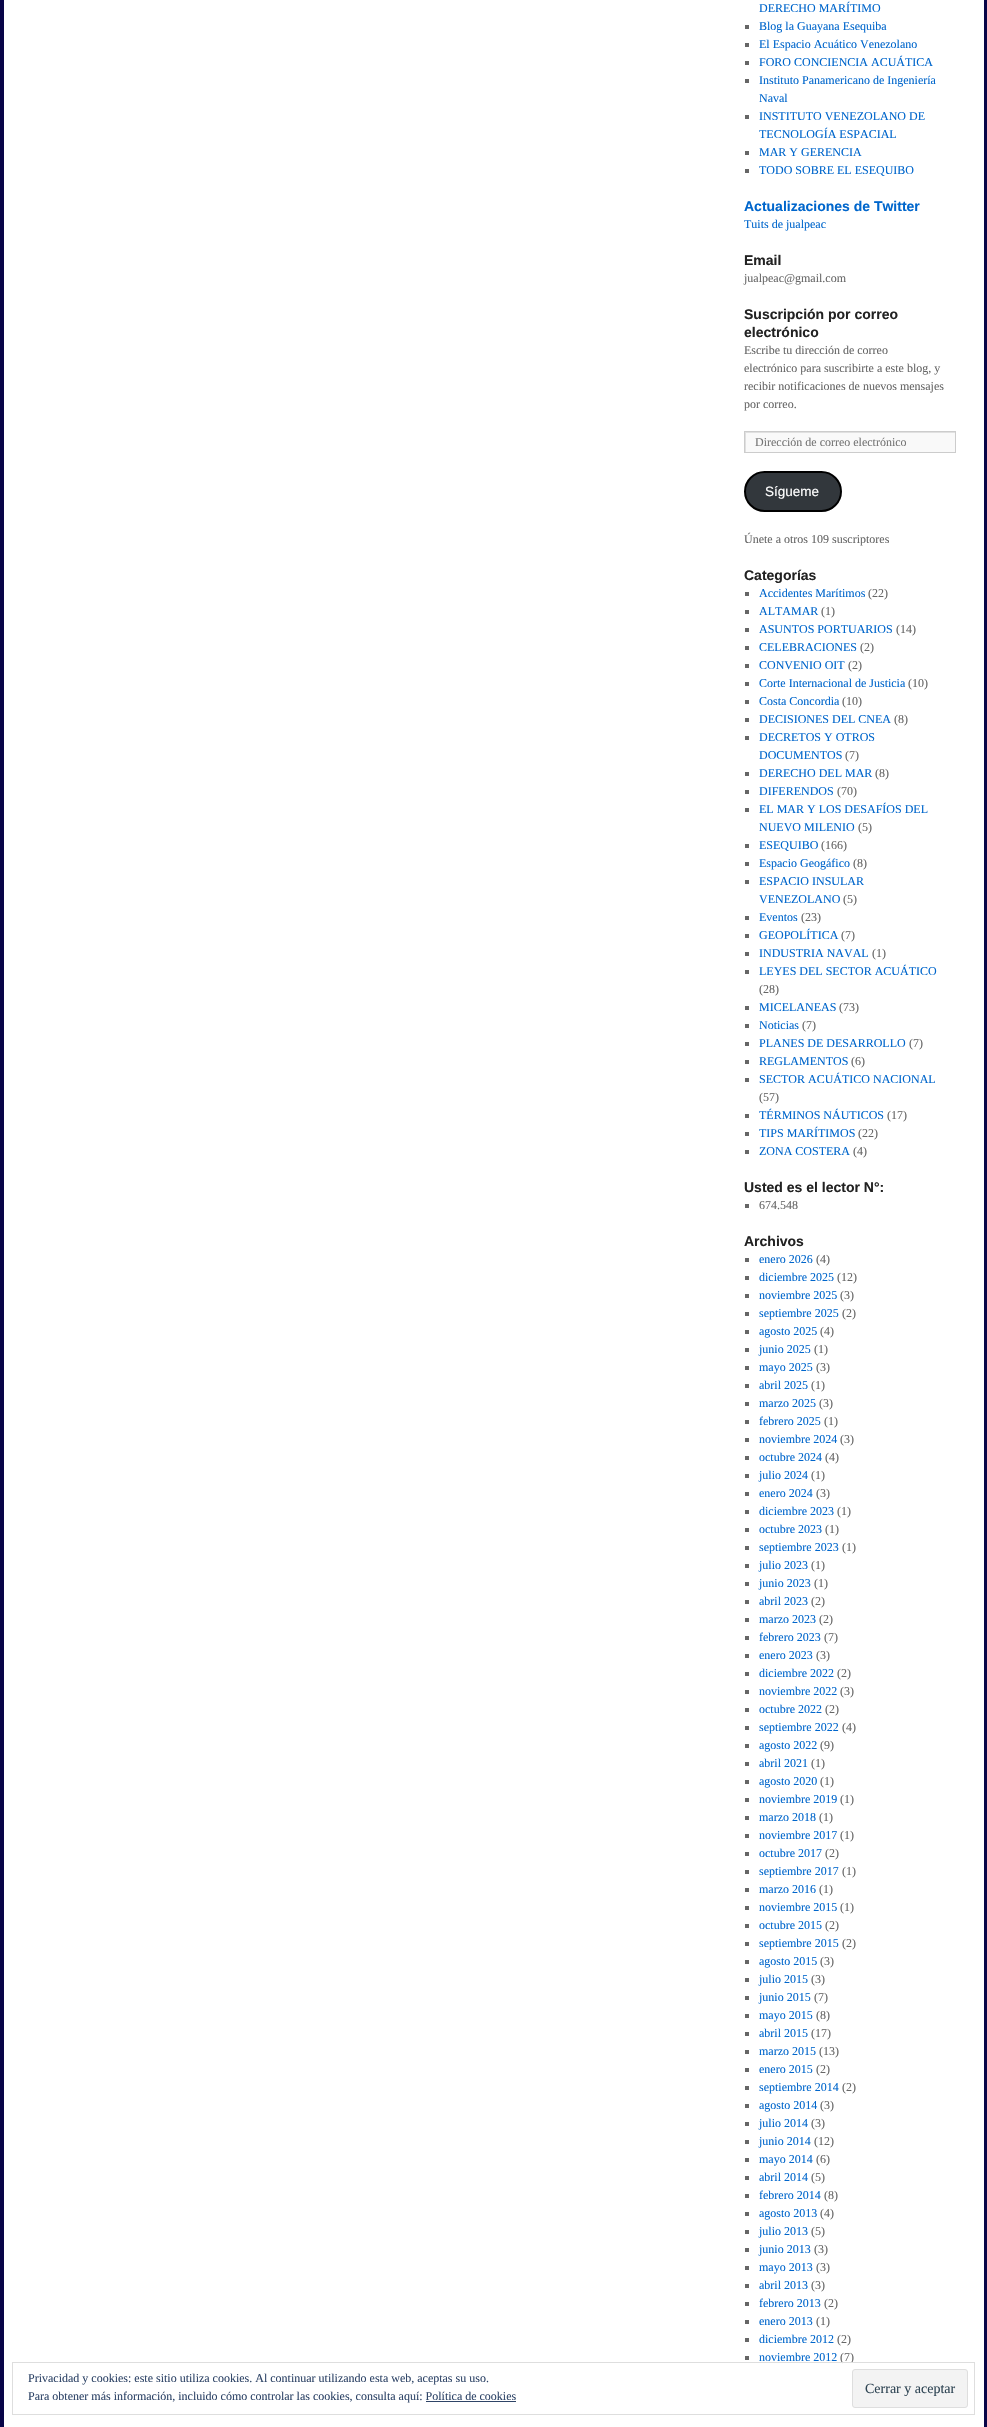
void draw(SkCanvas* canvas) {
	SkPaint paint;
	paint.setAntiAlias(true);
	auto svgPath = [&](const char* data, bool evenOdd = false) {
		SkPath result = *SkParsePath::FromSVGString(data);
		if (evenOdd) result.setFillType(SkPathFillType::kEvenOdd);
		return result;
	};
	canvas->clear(0xff080548);
	paint.setColor(0xffffffff);
	canvas->drawRect(SkRect::MakeXYWH(4, 0, 980, 2427), paint);
	SkFont f1(fontMgr->matchFamilyStyle("Liberation Serif", SkFontStyle::Normal()), 12);
	f1.setSubpixel(true);
	paint.setColor(0xff0066cc);
	canvas->drawString("DERECHO MARÍTIMO", 759, 12, f1, paint);
	paint.setColor(0xff666666);
	canvas->drawRect(SkRect::MakeXYWH(745, 25, 4, 4), paint);
	paint.setColor(0xff0066cc);
	canvas->drawString("Blog la Guayana Esequiba", 759, 30, f1, paint);
	paint.setColor(0xff666666);
	canvas->drawRect(SkRect::MakeXYWH(745, 43, 4, 4), paint);
	paint.setColor(0xff0066cc);
	canvas->drawString("El Espacio Acuático Venezolano", 759, 48, f1, paint);
	paint.setColor(0xff666666);
	canvas->drawRect(SkRect::MakeXYWH(745, 61, 4, 4), paint);
	paint.setColor(0xff0066cc);
	canvas->drawString("FORO CONCIENCIA ACUÁTICA", 759, 66, f1, paint);
	paint.setColor(0xff666666);
	canvas->drawRect(SkRect::MakeXYWH(745, 79, 4, 4), paint);
	paint.setColor(0xff0066cc);
	canvas->drawString("Instituto Panamericano de Ingeniería", 759, 84, f1, paint);
	canvas->drawString("Naval", 759, 102, f1, paint);
	paint.setColor(0xff666666);
	canvas->drawRect(SkRect::MakeXYWH(745, 115, 4, 4), paint);
	paint.setColor(0xff0066cc);
	canvas->drawString("INSTITUTO VENEZOLANO DE", 759, 120, f1, paint);
	canvas->drawString("TECNOLOGÍA ESPACIAL", 759, 138, f1, paint);
	paint.setColor(0xff666666);
	canvas->drawRect(SkRect::MakeXYWH(745, 151, 4, 4), paint);
	paint.setColor(0xff0066cc);
	canvas->drawString("MAR Y GERENCIA", 759, 156, f1, paint);
	paint.setColor(0xff666666);
	canvas->drawRect(SkRect::MakeXYWH(745, 169, 4, 4), paint);
	paint.setColor(0xff0066cc);
	canvas->drawString("TODO SOBRE EL ESEQUIBO", 759, 174, f1, paint);
	SkFont f2(fontMgr->matchFamilyStyle("Liberation Sans", SkFontStyle::Bold()), 14);
	f2.setSubpixel(true);
	canvas->drawString("Actualizaciones de Twitter", 744, 211, f2, paint);
	canvas->drawString("Tuits de jualpeac", 744, 228, f1, paint);
	paint.setColor(0xff222222);
	canvas->drawString("Email", 744, 265, f2, paint);
	paint.setColor(0xff666666);
	canvas->drawString("jualpeac@gmail.com", 744, 282, f1, paint);
	paint.setColor(0xff222222);
	canvas->drawString("Suscripción por correo", 744, 319, f2, paint);
	canvas->drawString("electrónico", 744, 337, f2, paint);
	paint.setColor(0xff666666);
	canvas->drawString("Escribe tu dirección de correo", 744, 354, f1, paint);
	canvas->drawString("electrónico para suscribirte a este blog, y", 744, 372, f1, paint);
	canvas->drawString("recibir notificaciones de nuevos mensajes", 744, 390, f1, paint);
	canvas->drawString("por correo.", 744, 408, f1, paint);
	paint.setColor(0xfff9f9f9);
	canvas->drawRect(SkRect::MakeXYWH(746, 433, 209, 19), paint);
	canvas->save();
	canvas->clipRect(SkRect::MakeXYWH(745, 432, 210, 20));
	paint.setColor(0xffe0e0e0);
	canvas->drawPath(svgPath("M646 333H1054V551H646ZM746 433H956V453H746Z", true), paint);
	canvas->restore();
	paint.setStroke(true);
	paint.setStrokeWidth(1);
	paint.setColor(0xffcccccc);
	canvas->drawRect(SkRect::MakeXYWH(744.5, 431.5, 211, 21), paint);
	paint.setStroke(false);
	paint.setColor(0xff757575);
	canvas->drawString("Dirección de correo electrónico", 755, 446, f1, paint);
	paint.setColor(0xff32373c);
	canvas->drawRoundRect(SkRect::MakeXYWH(745, 472, 96, 39), 19.5, 19.5, paint);
	paint.setStroke(true);
	paint.setStrokeWidth(2);
	paint.setColor(0xff000000);
	canvas->drawRoundRect(SkRect::MakeXYWH(745, 472, 96, 39), 19.5, 19.5, paint);
	SkFont f3(fontMgr->matchFamilyStyle("Liberation Sans", SkFontStyle::Normal()), 13.5);
	f3.setSubpixel(true);
	paint.setStroke(false);
	paint.setColor(0xffffffff);
	canvas->drawString("Sígueme", 765, 496, f3, paint);
	paint.setColor(0xff666666);
	canvas->drawString("Únete a otros 109 suscriptores", 744, 543, f1, paint);
	paint.setColor(0xff222222);
	canvas->drawString("Categorías", 744, 580, f2, paint);
	paint.setColor(0xff666666);
	canvas->drawRect(SkRect::MakeXYWH(745, 592, 4, 4), paint);
	paint.setColor(0xff0066cc);
	canvas->drawString("Accidentes Marítimos", 759, 597, f1, paint);
	paint.setColor(0xff666666);
	canvas->drawString("(22)", 868, 597, f1, paint);
	canvas->drawRect(SkRect::MakeXYWH(745, 610, 4, 4), paint);
	paint.setColor(0xff0066cc);
	canvas->drawString("ALTAMAR", 759, 615, f1, paint);
	paint.setColor(0xff666666);
	canvas->drawString("(1)", 821, 615, f1, paint);
	canvas->drawRect(SkRect::MakeXYWH(745, 628, 4, 4), paint);
	paint.setColor(0xff0066cc);
	canvas->drawString("ASUNTOS PORTUARIOS", 759, 633, f1, paint);
	paint.setColor(0xff666666);
	canvas->drawString("(14)", 896, 633, f1, paint);
	canvas->drawRect(SkRect::MakeXYWH(745, 646, 4, 4), paint);
	paint.setColor(0xff0066cc);
	canvas->drawString("CELEBRACIONES", 759, 651, f1, paint);
	paint.setColor(0xff666666);
	canvas->drawString("(2)", 860, 651, f1, paint);
	canvas->drawRect(SkRect::MakeXYWH(745, 664, 4, 4), paint);
	paint.setColor(0xff0066cc);
	canvas->drawString("CONVENIO OIT", 759, 669, f1, paint);
	paint.setColor(0xff666666);
	canvas->drawString("(2)", 848, 669, f1, paint);
	canvas->drawRect(SkRect::MakeXYWH(745, 682, 4, 4), paint);
	paint.setColor(0xff0066cc);
	canvas->drawString("Corte Internacional de Justicia", 759, 687, f1, paint);
	paint.setColor(0xff666666);
	canvas->drawString("(10)", 908, 687, f1, paint);
	canvas->drawRect(SkRect::MakeXYWH(745, 700, 4, 4), paint);
	paint.setColor(0xff0066cc);
	canvas->drawString("Costa Concordia", 759, 705, f1, paint);
	paint.setColor(0xff666666);
	canvas->drawString("(10)", 842, 705, f1, paint);
	canvas->drawRect(SkRect::MakeXYWH(745, 718, 4, 4), paint);
	paint.setColor(0xff0066cc);
	canvas->drawString("DECISIONES DEL CNEA", 759, 723, f1, paint);
	paint.setColor(0xff666666);
	canvas->drawString("(8)", 894, 723, f1, paint);
	canvas->drawRect(SkRect::MakeXYWH(745, 736, 4, 4), paint);
	paint.setColor(0xff0066cc);
	canvas->drawString("DECRETOS Y OTROS", 759, 741, f1, paint);
	canvas->drawString("DOCUMENTOS", 759, 759, f1, paint);
	paint.setColor(0xff666666);
	canvas->drawString("(7)", 845, 759, f1, paint);
	canvas->drawRect(SkRect::MakeXYWH(745, 772, 4, 4), paint);
	paint.setColor(0xff0066cc);
	canvas->drawString("DERECHO DEL MAR", 759, 777, f1, paint);
	paint.setColor(0xff666666);
	canvas->drawString("(8)", 875, 777, f1, paint);
	canvas->drawRect(SkRect::MakeXYWH(745, 790, 4, 4), paint);
	paint.setColor(0xff0066cc);
	canvas->drawString("DIFERENDOS", 759, 795, f1, paint);
	paint.setColor(0xff666666);
	canvas->drawString("(70)", 837, 795, f1, paint);
	canvas->drawRect(SkRect::MakeXYWH(745, 808, 4, 4), paint);
	paint.setColor(0xff0066cc);
	canvas->drawString("EL MAR Y LOS DESAFÍOS DEL", 759, 813, f1, paint);
	canvas->drawString("NUEVO MILENIO", 759, 831, f1, paint);
	paint.setColor(0xff666666);
	canvas->drawString("(5)", 858, 831, f1, paint);
	canvas->drawRect(SkRect::MakeXYWH(745, 844, 4, 4), paint);
	paint.setColor(0xff0066cc);
	canvas->drawString("ESEQUIBO", 759, 849, f1, paint);
	paint.setColor(0xff666666);
	canvas->drawString("(166)", 821, 849, f1, paint);
	canvas->drawRect(SkRect::MakeXYWH(745, 862, 4, 4), paint);
	paint.setColor(0xff0066cc);
	canvas->drawString("Espacio Geogáfico", 759, 867, f1, paint);
	paint.setColor(0xff666666);
	canvas->drawString("(8)", 853, 867, f1, paint);
	canvas->drawRect(SkRect::MakeXYWH(745, 880, 4, 4), paint);
	paint.setColor(0xff0066cc);
	canvas->drawString("ESPACIO INSULAR", 759, 885, f1, paint);
	canvas->drawString("VENEZOLANO", 759, 903, f1, paint);
	paint.setColor(0xff666666);
	canvas->drawString("(5)", 843, 903, f1, paint);
	canvas->drawRect(SkRect::MakeXYWH(745, 916, 4, 4), paint);
	paint.setColor(0xff0066cc);
	canvas->drawString("Eventos", 759, 921, f1, paint);
	paint.setColor(0xff666666);
	canvas->drawString("(23)", 801, 921, f1, paint);
	canvas->drawRect(SkRect::MakeXYWH(745, 934, 4, 4), paint);
	paint.setColor(0xff0066cc);
	canvas->drawString("GEOPOLÍTICA", 759, 939, f1, paint);
	paint.setColor(0xff666666);
	canvas->drawString("(7)", 841, 939, f1, paint);
	canvas->drawRect(SkRect::MakeXYWH(745, 952, 4, 4), paint);
	paint.setColor(0xff0066cc);
	canvas->drawString("INDUSTRIA NAVAL", 759, 957, f1, paint);
	paint.setColor(0xff666666);
	canvas->drawString("(1)", 872, 957, f1, paint);
	canvas->drawRect(SkRect::MakeXYWH(745, 970, 4, 4), paint);
	paint.setColor(0xff0066cc);
	canvas->drawString("LEYES DEL SECTOR ACUÁTICO", 759, 975, f1, paint);
	paint.setColor(0xff666666);
	canvas->drawString("(28)", 759, 993, f1, paint);
	canvas->drawRect(SkRect::MakeXYWH(745, 1006, 4, 4), paint);
	paint.setColor(0xff0066cc);
	canvas->drawString("MICELANEAS", 759, 1011, f1, paint);
	paint.setColor(0xff666666);
	canvas->drawString("(73)", 839, 1011, f1, paint);
	canvas->drawRect(SkRect::MakeXYWH(745, 1024, 4, 4), paint);
	paint.setColor(0xff0066cc);
	canvas->drawString("Noticias", 759, 1029, f1, paint);
	paint.setColor(0xff666666);
	canvas->drawString("(7)", 802, 1029, f1, paint);
	canvas->drawRect(SkRect::MakeXYWH(745, 1042, 4, 4), paint);
	paint.setColor(0xff0066cc);
	canvas->drawString("PLANES DE DESARROLLO", 759, 1047, f1, paint);
	paint.setColor(0xff666666);
	canvas->drawString("(7)", 909, 1047, f1, paint);
	canvas->drawRect(SkRect::MakeXYWH(745, 1060, 4, 4), paint);
	paint.setColor(0xff0066cc);
	canvas->drawString("REGLAMENTOS", 759, 1065, f1, paint);
	paint.setColor(0xff666666);
	canvas->drawString("(6)", 851, 1065, f1, paint);
	canvas->drawRect(SkRect::MakeXYWH(745, 1078, 4, 4), paint);
	paint.setColor(0xff0066cc);
	canvas->drawString("SECTOR ACUÁTICO NACIONAL", 759, 1083, f1, paint);
	paint.setColor(0xff666666);
	canvas->drawString("(57)", 759, 1101, f1, paint);
	canvas->drawRect(SkRect::MakeXYWH(745, 1114, 4, 4), paint);
	paint.setColor(0xff0066cc);
	canvas->drawString("TÉRMINOS NÁUTICOS", 759, 1119, f1, paint);
	paint.setColor(0xff666666);
	canvas->drawString("(17)", 887, 1119, f1, paint);
	canvas->drawRect(SkRect::MakeXYWH(745, 1132, 4, 4), paint);
	paint.setColor(0xff0066cc);
	canvas->drawString("TIPS MARÍTIMOS", 759, 1137, f1, paint);
	paint.setColor(0xff666666);
	canvas->drawString("(22)", 858, 1137, f1, paint);
	canvas->drawRect(SkRect::MakeXYWH(745, 1150, 4, 4), paint);
	paint.setColor(0xff0066cc);
	canvas->drawString("ZONA COSTERA", 759, 1155, f1, paint);
	paint.setColor(0xff666666);
	canvas->drawString("(4)", 853, 1155, f1, paint);
	paint.setColor(0xff222222);
	canvas->drawString("Usted es el lector N°:", 744, 1192, f2, paint);
	paint.setColor(0xff666666);
	canvas->drawRect(SkRect::MakeXYWH(745, 1204, 4, 4), paint);
	canvas->drawString("674.548", 759, 1209, f1, paint);
	paint.setColor(0xff222222);
	canvas->drawString("Archivos", 744, 1246, f2, paint);
	paint.setColor(0xff666666);
	canvas->drawRect(SkRect::MakeXYWH(745, 1258, 4, 4), paint);
	paint.setColor(0xff0066cc);
	canvas->drawString("enero 2026", 759, 1263, f1, paint);
	paint.setColor(0xff666666);
	canvas->drawString("(4)", 816, 1263, f1, paint);
	canvas->drawRect(SkRect::MakeXYWH(745, 1276, 4, 4), paint);
	paint.setColor(0xff0066cc);
	canvas->drawString("diciembre 2025", 759, 1281, f1, paint);
	paint.setColor(0xff666666);
	canvas->drawString("(12)", 837, 1281, f1, paint);
	canvas->drawRect(SkRect::MakeXYWH(745, 1294, 4, 4), paint);
	paint.setColor(0xff0066cc);
	canvas->drawString("noviembre 2025", 759, 1299, f1, paint);
	paint.setColor(0xff666666);
	canvas->drawString("(3)", 840, 1299, f1, paint);
	canvas->drawRect(SkRect::MakeXYWH(745, 1312, 4, 4), paint);
	paint.setColor(0xff0066cc);
	canvas->drawString("septiembre 2025", 759, 1317, f1, paint);
	paint.setColor(0xff666666);
	canvas->drawString("(2)", 842, 1317, f1, paint);
	canvas->drawRect(SkRect::MakeXYWH(745, 1330, 4, 4), paint);
	paint.setColor(0xff0066cc);
	canvas->drawString("agosto 2025", 759, 1335, f1, paint);
	paint.setColor(0xff666666);
	canvas->drawString("(4)", 820, 1335, f1, paint);
	canvas->drawRect(SkRect::MakeXYWH(745, 1348, 4, 4), paint);
	paint.setColor(0xff0066cc);
	canvas->drawString("junio 2025", 759, 1353, f1, paint);
	paint.setColor(0xff666666);
	canvas->drawString("(1)", 814, 1353, f1, paint);
	canvas->drawRect(SkRect::MakeXYWH(745, 1366, 4, 4), paint);
	paint.setColor(0xff0066cc);
	canvas->drawString("mayo 2025", 759, 1371, f1, paint);
	paint.setColor(0xff666666);
	canvas->drawString("(3)", 816, 1371, f1, paint);
	canvas->drawRect(SkRect::MakeXYWH(745, 1384, 4, 4), paint);
	paint.setColor(0xff0066cc);
	canvas->drawString("abril 2025", 759, 1389, f1, paint);
	paint.setColor(0xff666666);
	canvas->drawString("(1)", 811, 1389, f1, paint);
	canvas->drawRect(SkRect::MakeXYWH(745, 1402, 4, 4), paint);
	paint.setColor(0xff0066cc);
	canvas->drawString("marzo 2025", 759, 1407, f1, paint);
	paint.setColor(0xff666666);
	canvas->drawString("(3)", 819, 1407, f1, paint);
	canvas->drawRect(SkRect::MakeXYWH(745, 1420, 4, 4), paint);
	paint.setColor(0xff0066cc);
	canvas->drawString("febrero 2025", 759, 1425, f1, paint);
	paint.setColor(0xff666666);
	canvas->drawString("(1)", 824, 1425, f1, paint);
	canvas->drawRect(SkRect::MakeXYWH(745, 1438, 4, 4), paint);
	paint.setColor(0xff0066cc);
	canvas->drawString("noviembre 2024", 759, 1443, f1, paint);
	paint.setColor(0xff666666);
	canvas->drawString("(3)", 840, 1443, f1, paint);
	canvas->drawRect(SkRect::MakeXYWH(745, 1456, 4, 4), paint);
	paint.setColor(0xff0066cc);
	canvas->drawString("octubre 2024", 759, 1461, f1, paint);
	paint.setColor(0xff666666);
	canvas->drawString("(4)", 825, 1461, f1, paint);
	canvas->drawRect(SkRect::MakeXYWH(745, 1474, 4, 4), paint);
	paint.setColor(0xff0066cc);
	canvas->drawString("julio 2024", 759, 1479, f1, paint);
	paint.setColor(0xff666666);
	canvas->drawString("(1)", 811, 1479, f1, paint);
	canvas->drawRect(SkRect::MakeXYWH(745, 1492, 4, 4), paint);
	paint.setColor(0xff0066cc);
	canvas->drawString("enero 2024", 759, 1497, f1, paint);
	paint.setColor(0xff666666);
	canvas->drawString("(3)", 816, 1497, f1, paint);
	canvas->drawRect(SkRect::MakeXYWH(745, 1510, 4, 4), paint);
	paint.setColor(0xff0066cc);
	canvas->drawString("diciembre 2023", 759, 1515, f1, paint);
	paint.setColor(0xff666666);
	canvas->drawString("(1)", 837, 1515, f1, paint);
	canvas->drawRect(SkRect::MakeXYWH(745, 1528, 4, 4), paint);
	paint.setColor(0xff0066cc);
	canvas->drawString("octubre 2023", 759, 1533, f1, paint);
	paint.setColor(0xff666666);
	canvas->drawString("(1)", 825, 1533, f1, paint);
	canvas->drawRect(SkRect::MakeXYWH(745, 1546, 4, 4), paint);
	paint.setColor(0xff0066cc);
	canvas->drawString("septiembre 2023", 759, 1551, f1, paint);
	paint.setColor(0xff666666);
	canvas->drawString("(1)", 842, 1551, f1, paint);
	canvas->drawRect(SkRect::MakeXYWH(745, 1564, 4, 4), paint);
	paint.setColor(0xff0066cc);
	canvas->drawString("julio 2023", 759, 1569, f1, paint);
	paint.setColor(0xff666666);
	canvas->drawString("(1)", 811, 1569, f1, paint);
	canvas->drawRect(SkRect::MakeXYWH(745, 1582, 4, 4), paint);
	paint.setColor(0xff0066cc);
	canvas->drawString("junio 2023", 759, 1587, f1, paint);
	paint.setColor(0xff666666);
	canvas->drawString("(1)", 814, 1587, f1, paint);
	canvas->drawRect(SkRect::MakeXYWH(745, 1600, 4, 4), paint);
	paint.setColor(0xff0066cc);
	canvas->drawString("abril 2023", 759, 1605, f1, paint);
	paint.setColor(0xff666666);
	canvas->drawString("(2)", 811, 1605, f1, paint);
	canvas->drawRect(SkRect::MakeXYWH(745, 1618, 4, 4), paint);
	paint.setColor(0xff0066cc);
	canvas->drawString("marzo 2023", 759, 1623, f1, paint);
	paint.setColor(0xff666666);
	canvas->drawString("(2)", 819, 1623, f1, paint);
	canvas->drawRect(SkRect::MakeXYWH(745, 1636, 4, 4), paint);
	paint.setColor(0xff0066cc);
	canvas->drawString("febrero 2023", 759, 1641, f1, paint);
	paint.setColor(0xff666666);
	canvas->drawString("(7)", 824, 1641, f1, paint);
	canvas->drawRect(SkRect::MakeXYWH(745, 1654, 4, 4), paint);
	paint.setColor(0xff0066cc);
	canvas->drawString("enero 2023", 759, 1659, f1, paint);
	paint.setColor(0xff666666);
	canvas->drawString("(3)", 816, 1659, f1, paint);
	canvas->drawRect(SkRect::MakeXYWH(745, 1672, 4, 4), paint);
	paint.setColor(0xff0066cc);
	canvas->drawString("diciembre 2022", 759, 1677, f1, paint);
	paint.setColor(0xff666666);
	canvas->drawString("(2)", 837, 1677, f1, paint);
	canvas->drawRect(SkRect::MakeXYWH(745, 1690, 4, 4), paint);
	paint.setColor(0xff0066cc);
	canvas->drawString("noviembre 2022", 759, 1695, f1, paint);
	paint.setColor(0xff666666);
	canvas->drawString("(3)", 840, 1695, f1, paint);
	canvas->drawRect(SkRect::MakeXYWH(745, 1708, 4, 4), paint);
	paint.setColor(0xff0066cc);
	canvas->drawString("octubre 2022", 759, 1713, f1, paint);
	paint.setColor(0xff666666);
	canvas->drawString("(2)", 825, 1713, f1, paint);
	canvas->drawRect(SkRect::MakeXYWH(745, 1726, 4, 4), paint);
	paint.setColor(0xff0066cc);
	canvas->drawString("septiembre 2022", 759, 1731, f1, paint);
	paint.setColor(0xff666666);
	canvas->drawString("(4)", 842, 1731, f1, paint);
	canvas->drawRect(SkRect::MakeXYWH(745, 1744, 4, 4), paint);
	paint.setColor(0xff0066cc);
	canvas->drawString("agosto 2022", 759, 1749, f1, paint);
	paint.setColor(0xff666666);
	canvas->drawString("(9)", 820, 1749, f1, paint);
	canvas->drawRect(SkRect::MakeXYWH(745, 1762, 4, 4), paint);
	paint.setColor(0xff0066cc);
	canvas->drawString("abril 2021", 759, 1767, f1, paint);
	paint.setColor(0xff666666);
	canvas->drawString("(1)", 811, 1767, f1, paint);
	canvas->drawRect(SkRect::MakeXYWH(745, 1780, 4, 4), paint);
	paint.setColor(0xff0066cc);
	canvas->drawString("agosto 2020", 759, 1785, f1, paint);
	paint.setColor(0xff666666);
	canvas->drawString("(1)", 820, 1785, f1, paint);
	canvas->drawRect(SkRect::MakeXYWH(745, 1798, 4, 4), paint);
	paint.setColor(0xff0066cc);
	canvas->drawString("noviembre 2019", 759, 1803, f1, paint);
	paint.setColor(0xff666666);
	canvas->drawString("(1)", 840, 1803, f1, paint);
	canvas->drawRect(SkRect::MakeXYWH(745, 1816, 4, 4), paint);
	paint.setColor(0xff0066cc);
	canvas->drawString("marzo 2018", 759, 1821, f1, paint);
	paint.setColor(0xff666666);
	canvas->drawString("(1)", 819, 1821, f1, paint);
	canvas->drawRect(SkRect::MakeXYWH(745, 1834, 4, 4), paint);
	paint.setColor(0xff0066cc);
	canvas->drawString("noviembre 2017", 759, 1839, f1, paint);
	paint.setColor(0xff666666);
	canvas->drawString("(1)", 840, 1839, f1, paint);
	canvas->drawRect(SkRect::MakeXYWH(745, 1852, 4, 4), paint);
	paint.setColor(0xff0066cc);
	canvas->drawString("octubre 2017", 759, 1857, f1, paint);
	paint.setColor(0xff666666);
	canvas->drawString("(2)", 825, 1857, f1, paint);
	canvas->drawRect(SkRect::MakeXYWH(745, 1870, 4, 4), paint);
	paint.setColor(0xff0066cc);
	canvas->drawString("septiembre 2017", 759, 1875, f1, paint);
	paint.setColor(0xff666666);
	canvas->drawString("(1)", 842, 1875, f1, paint);
	canvas->drawRect(SkRect::MakeXYWH(745, 1888, 4, 4), paint);
	paint.setColor(0xff0066cc);
	canvas->drawString("marzo 2016", 759, 1893, f1, paint);
	paint.setColor(0xff666666);
	canvas->drawString("(1)", 819, 1893, f1, paint);
	canvas->drawRect(SkRect::MakeXYWH(745, 1906, 4, 4), paint);
	paint.setColor(0xff0066cc);
	canvas->drawString("noviembre 2015", 759, 1911, f1, paint);
	paint.setColor(0xff666666);
	canvas->drawString("(1)", 840, 1911, f1, paint);
	canvas->drawRect(SkRect::MakeXYWH(745, 1924, 4, 4), paint);
	paint.setColor(0xff0066cc);
	canvas->drawString("octubre 2015", 759, 1929, f1, paint);
	paint.setColor(0xff666666);
	canvas->drawString("(2)", 825, 1929, f1, paint);
	canvas->drawRect(SkRect::MakeXYWH(745, 1942, 4, 4), paint);
	paint.setColor(0xff0066cc);
	canvas->drawString("septiembre 2015", 759, 1947, f1, paint);
	paint.setColor(0xff666666);
	canvas->drawString("(2)", 842, 1947, f1, paint);
	canvas->drawRect(SkRect::MakeXYWH(745, 1960, 4, 4), paint);
	paint.setColor(0xff0066cc);
	canvas->drawString("agosto 2015", 759, 1965, f1, paint);
	paint.setColor(0xff666666);
	canvas->drawString("(3)", 820, 1965, f1, paint);
	canvas->drawRect(SkRect::MakeXYWH(745, 1978, 4, 4), paint);
	paint.setColor(0xff0066cc);
	canvas->drawString("julio 2015", 759, 1983, f1, paint);
	paint.setColor(0xff666666);
	canvas->drawString("(3)", 811, 1983, f1, paint);
	canvas->drawRect(SkRect::MakeXYWH(745, 1996, 4, 4), paint);
	paint.setColor(0xff0066cc);
	canvas->drawString("junio 2015", 759, 2001, f1, paint);
	paint.setColor(0xff666666);
	canvas->drawString("(7)", 814, 2001, f1, paint);
	canvas->drawRect(SkRect::MakeXYWH(745, 2014, 4, 4), paint);
	paint.setColor(0xff0066cc);
	canvas->drawString("mayo 2015", 759, 2019, f1, paint);
	paint.setColor(0xff666666);
	canvas->drawString("(8)", 816, 2019, f1, paint);
	canvas->drawRect(SkRect::MakeXYWH(745, 2032, 4, 4), paint);
	paint.setColor(0xff0066cc);
	canvas->drawString("abril 2015", 759, 2037, f1, paint);
	paint.setColor(0xff666666);
	canvas->drawString("(17)", 811, 2037, f1, paint);
	canvas->drawRect(SkRect::MakeXYWH(745, 2050, 4, 4), paint);
	paint.setColor(0xff0066cc);
	canvas->drawString("marzo 2015", 759, 2055, f1, paint);
	paint.setColor(0xff666666);
	canvas->drawString("(13)", 819, 2055, f1, paint);
	canvas->drawRect(SkRect::MakeXYWH(745, 2068, 4, 4), paint);
	paint.setColor(0xff0066cc);
	canvas->drawString("enero 2015", 759, 2073, f1, paint);
	paint.setColor(0xff666666);
	canvas->drawString("(2)", 816, 2073, f1, paint);
	canvas->drawRect(SkRect::MakeXYWH(745, 2086, 4, 4), paint);
	paint.setColor(0xff0066cc);
	canvas->drawString("septiembre 2014", 759, 2091, f1, paint);
	paint.setColor(0xff666666);
	canvas->drawString("(2)", 842, 2091, f1, paint);
	canvas->drawRect(SkRect::MakeXYWH(745, 2104, 4, 4), paint);
	paint.setColor(0xff0066cc);
	canvas->drawString("agosto 2014", 759, 2109, f1, paint);
	paint.setColor(0xff666666);
	canvas->drawString("(3)", 820, 2109, f1, paint);
	canvas->drawRect(SkRect::MakeXYWH(745, 2122, 4, 4), paint);
	paint.setColor(0xff0066cc);
	canvas->drawString("julio 2014", 759, 2127, f1, paint);
	paint.setColor(0xff666666);
	canvas->drawString("(3)", 811, 2127, f1, paint);
	canvas->drawRect(SkRect::MakeXYWH(745, 2140, 4, 4), paint);
	paint.setColor(0xff0066cc);
	canvas->drawString("junio 2014", 759, 2145, f1, paint);
	paint.setColor(0xff666666);
	canvas->drawString("(12)", 814, 2145, f1, paint);
	canvas->drawRect(SkRect::MakeXYWH(745, 2158, 4, 4), paint);
	paint.setColor(0xff0066cc);
	canvas->drawString("mayo 2014", 759, 2163, f1, paint);
	paint.setColor(0xff666666);
	canvas->drawString("(6)", 816, 2163, f1, paint);
	canvas->drawRect(SkRect::MakeXYWH(745, 2176, 4, 4), paint);
	paint.setColor(0xff0066cc);
	canvas->drawString("abril 2014", 759, 2181, f1, paint);
	paint.setColor(0xff666666);
	canvas->drawString("(5)", 811, 2181, f1, paint);
	canvas->drawRect(SkRect::MakeXYWH(745, 2194, 4, 4), paint);
	paint.setColor(0xff0066cc);
	canvas->drawString("febrero 2014", 759, 2199, f1, paint);
	paint.setColor(0xff666666);
	canvas->drawString("(8)", 824, 2199, f1, paint);
	canvas->drawRect(SkRect::MakeXYWH(745, 2212, 4, 4), paint);
	paint.setColor(0xff0066cc);
	canvas->drawString("agosto 2013", 759, 2217, f1, paint);
	paint.setColor(0xff666666);
	canvas->drawString("(4)", 820, 2217, f1, paint);
	canvas->drawRect(SkRect::MakeXYWH(745, 2230, 4, 4), paint);
	paint.setColor(0xff0066cc);
	canvas->drawString("julio 2013", 759, 2235, f1, paint);
	paint.setColor(0xff666666);
	canvas->drawString("(5)", 811, 2235, f1, paint);
	canvas->drawRect(SkRect::MakeXYWH(745, 2248, 4, 4), paint);
	paint.setColor(0xff0066cc);
	canvas->drawString("junio 2013", 759, 2253, f1, paint);
	paint.setColor(0xff666666);
	canvas->drawString("(3)", 814, 2253, f1, paint);
	canvas->drawRect(SkRect::MakeXYWH(745, 2266, 4, 4), paint);
	paint.setColor(0xff0066cc);
	canvas->drawString("mayo 2013", 759, 2271, f1, paint);
	paint.setColor(0xff666666);
	canvas->drawString("(3)", 816, 2271, f1, paint);
	canvas->drawRect(SkRect::MakeXYWH(745, 2284, 4, 4), paint);
	paint.setColor(0xff0066cc);
	canvas->drawString("abril 2013", 759, 2289, f1, paint);
	paint.setColor(0xff666666);
	canvas->drawString("(3)", 811, 2289, f1, paint);
	canvas->drawRect(SkRect::MakeXYWH(745, 2302, 4, 4), paint);
	paint.setColor(0xff0066cc);
	canvas->drawString("febrero 2013", 759, 2307, f1, paint);
	paint.setColor(0xff666666);
	canvas->drawString("(2)", 824, 2307, f1, paint);
	canvas->drawRect(SkRect::MakeXYWH(745, 2320, 4, 4), paint);
	paint.setColor(0xff0066cc);
	canvas->drawString("enero 2013", 759, 2325, f1, paint);
	paint.setColor(0xff666666);
	canvas->drawString("(1)", 816, 2325, f1, paint);
	canvas->drawRect(SkRect::MakeXYWH(745, 2338, 4, 4), paint);
	paint.setColor(0xff0066cc);
	canvas->drawString("diciembre 2012", 759, 2343, f1, paint);
	paint.setColor(0xff666666);
	canvas->drawString("(2)", 837, 2343, f1, paint);
	canvas->drawRect(SkRect::MakeXYWH(745, 2356, 4, 4), paint);
	paint.setColor(0xff0066cc);
	canvas->drawString("noviembre 2012", 759, 2361, f1, paint);
	paint.setColor(0xff666666);
	canvas->drawString("(7)", 840, 2361, f1, paint);
	paint.setColor(0xffffffff);
	canvas->drawRect(SkRect::MakeXYWH(843, 2363, 9, 1), paint);
	paint.setStroke(true);
	paint.setStrokeWidth(1);
	paint.setColor(0xffdedede);
	canvas->drawRect(SkRect::MakeXYWH(12.5, 2362.5, 962, 52), paint);
	paint.setStroke(false);
	paint.setColor(0xff2e4467);
	canvas->drawString("Privacidad y cookies: este sitio utiliza cookies. Al continuar utilizando esta web, aceptas su uso.", 28, 2382, f1, paint);
	canvas->drawString("Para obtener más información, incluido cómo controlar las cookies, consulta aquí: Política de cookies", 28, 2400, f1, paint);
	paint.setColor(0xfff3f3f3);
	canvas->drawRoundRect(SkRect::MakeXYWH(852.5, 2369.5, 115, 38), 2.5, 2.5, paint);
	paint.setStroke(true);
	paint.setColor(0xffdedede);
	canvas->drawRoundRect(SkRect::MakeXYWH(852.5, 2369.5, 115, 38), 2.5, 2.5, paint);
	SkFont f4(fontMgr->matchFamilyStyle("Liberation Serif", SkFontStyle::Normal()), 14);
	f4.setSubpixel(true);
	paint.setStroke(false);
	paint.setColor(0xff2e4453);
	canvas->drawString("Cerrar y aceptar", 865, 2393, f4, paint);
	paint.setColor(0xff2e4467);
	canvas->drawRect(SkRect::MakeXYWH(426, 2401, 90, 1), paint);
}
